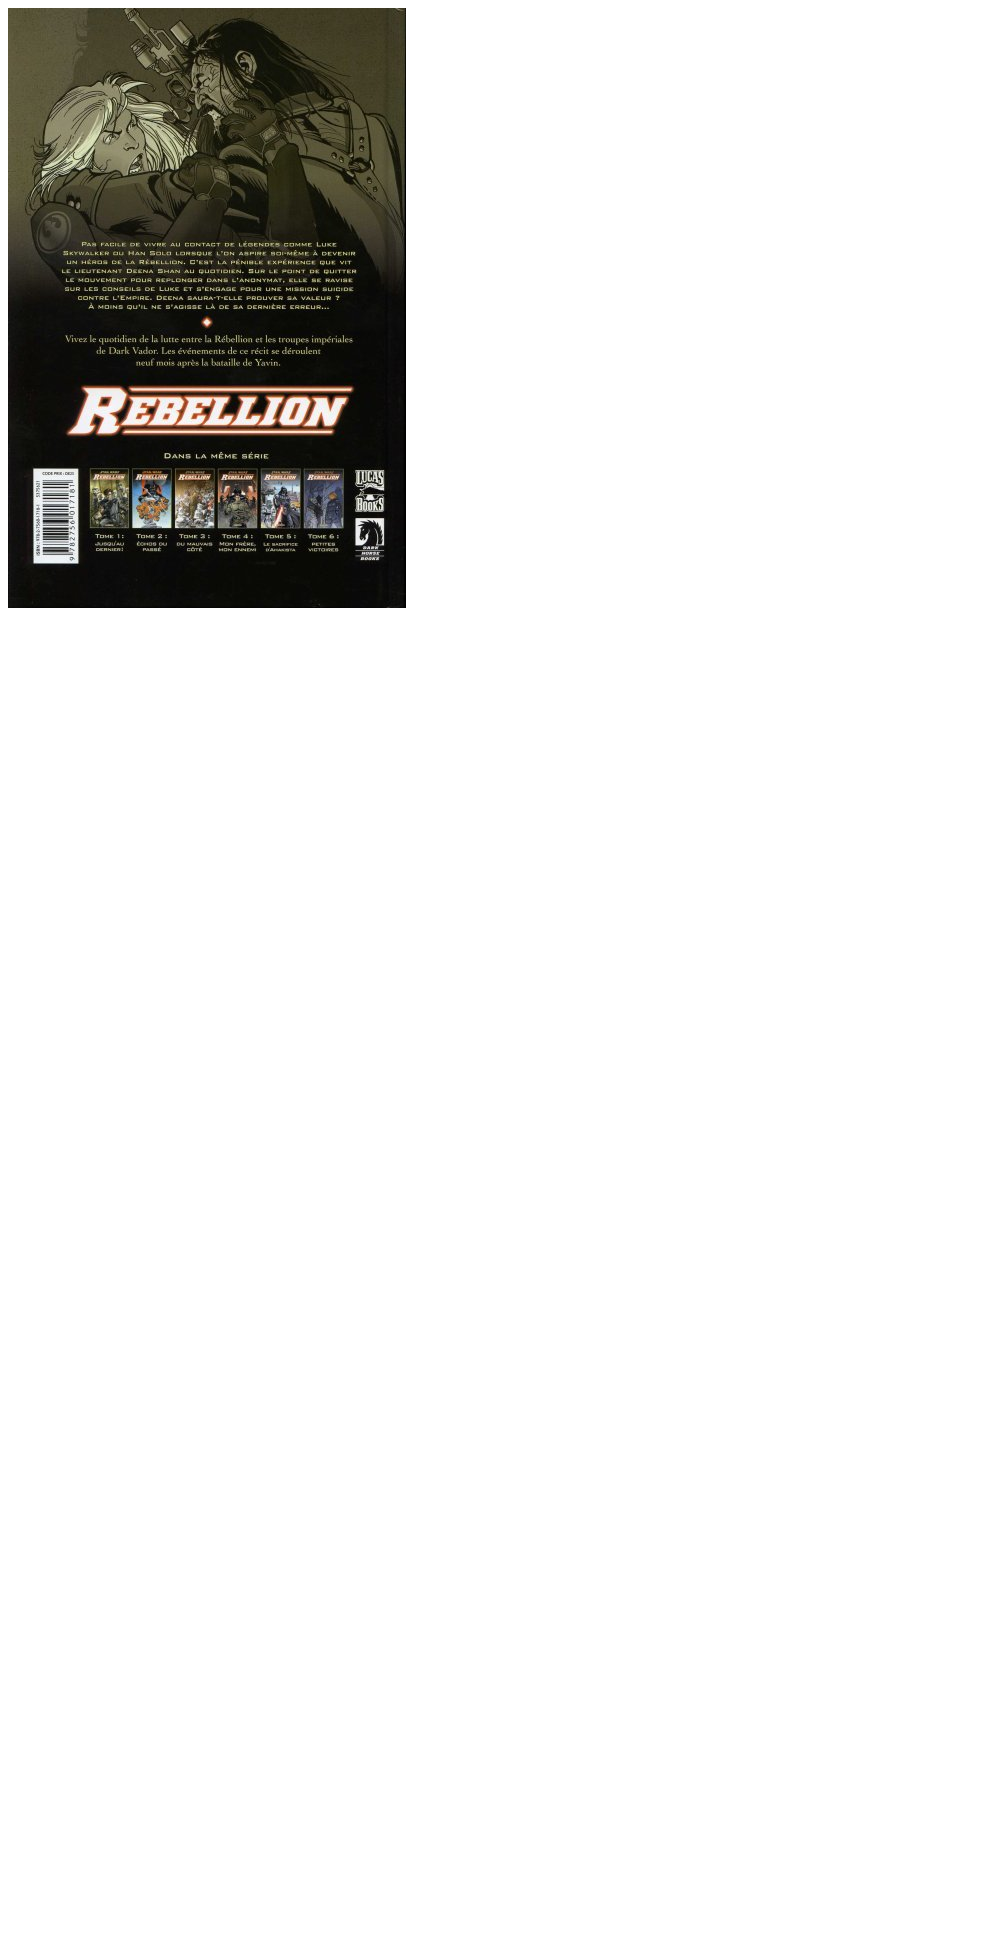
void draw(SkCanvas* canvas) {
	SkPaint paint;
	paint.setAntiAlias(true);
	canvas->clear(0xffffffff);
	canvas->drawImageRect(SkImages::DeferredFromEncodedData(SkData::MakeFromFileName("img1.png")), SkRect::MakeXYWH(8, 8, 398, 600), SkSamplingOptions());
}
